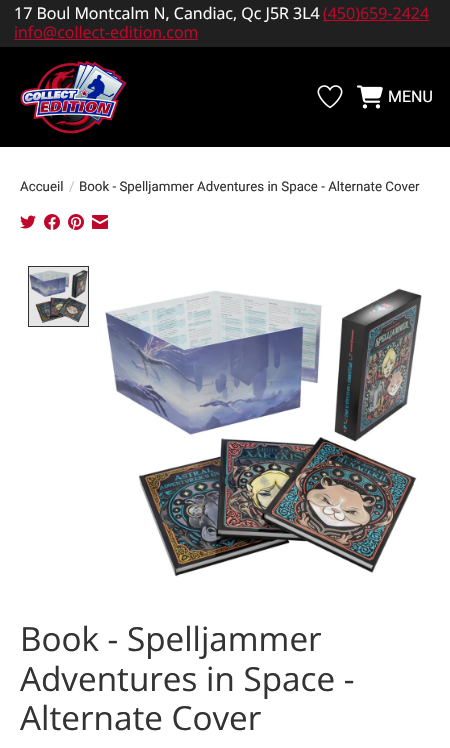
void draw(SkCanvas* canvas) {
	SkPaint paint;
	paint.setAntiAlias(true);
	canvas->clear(0xffffffff);
	paint.setColor(0xffe6e6e6);
	canvas->drawRect(SkRect::MakeXYWH(29, 267, 59, 59), paint);
	paint.setColor(0xff000000);
	canvas->drawRect(SkRect::MakeXYWH(0, 47, 450, 100), paint);
	paint.setColor(0xff202020);
	canvas->drawRect(SkRect::MakeXYWH(0, 0, 450, 47), paint);
	SkFont f1(fontMgr->matchFamilyStyle("Open Sans", SkFontStyle::Normal()), 16);
	f1.setSubpixel(true);
	paint.setColor(0xffffffff);
	canvas->drawString("17 Boul Montcalm N, Candiac, Qc J5R 3L4", 14, 19, f1, paint);
	paint.setColor(0xffbe072a);
	canvas->drawRect(SkRect::MakeXYWH(323, 20, 106, 1), paint);
	canvas->drawString("(450)659-2424", 323, 19, f1, paint);
	canvas->drawRect(SkRect::MakeXYWH(14, 39, 184, 1), paint);
	canvas->drawString("info@collect-edition.com", 14, 38, f1, paint);
	canvas->drawImageRect(SkImages::DeferredFromEncodedData(SkData::MakeFromFileName("img1.png")), SkRect::MakeXYWH(20, 60, 107, 74), SkSamplingOptions());
	canvas->drawImageRect(SkImages::DeferredFromEncodedData(SkData::MakeFromFileName("img2.png")), SkRect::MakeXYWH(317, 85, 26, 24), SkSamplingOptions());
	canvas->drawImageRect(SkImages::DeferredFromEncodedData(SkData::MakeFromFileName("img3.png")), SkRect::MakeXYWH(357, 85, 26, 24), SkSamplingOptions());
	SkFont f2(fontMgr->matchFamilyStyle("Roboto", SkFontStyle::Normal()), 16);
	f2.setSubpixel(true);
	paint.setColor(0xffffffff);
	canvas->drawString("MENU", 388, 102, f2, paint);
	SkFont f3(fontMgr->matchFamilyStyle("Roboto", SkFontStyle::Normal()), 13.3);
	f3.setSubpixel(true);
	paint.setColor(0xff333333);
	canvas->drawString("Accueil", 20, 191, f3, paint);
	paint.setColor(0xffc2c2c2);
	canvas->drawString("/", 69, 191, f3, paint);
	paint.setColor(0xff333333);
	canvas->drawString("Book - Spelljammer Adventures in Space - Alternate Cover", 79, 191, f3, paint);
	canvas->drawImageRect(SkImages::DeferredFromEncodedData(SkData::MakeFromFileName("img4.png")), SkRect::MakeXYWH(20, 215, 16, 14), SkSamplingOptions());
	canvas->drawImageRect(SkImages::DeferredFromEncodedData(SkData::MakeFromFileName("img5.png")), SkRect::MakeXYWH(44, 214, 16, 16), SkSamplingOptions());
	canvas->drawImageRect(SkImages::DeferredFromEncodedData(SkData::MakeFromFileName("img6.png")), SkRect::MakeXYWH(68, 214, 16, 16), SkSamplingOptions());
	canvas->drawImageRect(SkImages::DeferredFromEncodedData(SkData::MakeFromFileName("img7.png")), SkRect::MakeXYWH(92, 215, 16, 14), SkSamplingOptions());
	canvas->drawImageRect(SkImages::DeferredFromEncodedData(SkData::MakeFromFileName("img8.png")), SkRect::MakeXYWH(29, 269, 59, 54), SkSamplingOptions());
	paint.setStroke(true);
	paint.setStrokeWidth(1);
	canvas->drawRect(SkRect::MakeXYWH(28.5, 266.5, 60, 60), paint);
	canvas->drawImageRect(SkImages::DeferredFromEncodedData(SkData::MakeFromFileName("img9.png")), SkRect::MakeXYWH(104, 288, 318, 289), SkSamplingOptions());
	SkFont f4(fontMgr->matchFamilyStyle("Open Sans", SkFontStyle::Normal()), 33.25);
	f4.setSubpixel(true);
	paint.setStroke(false);
	canvas->drawString("Book - Spelljammer", 20, 651, f4, paint);
	canvas->drawString("Adventures in Space -", 20, 691, f4, paint);
	canvas->drawString("Alternate Cover", 20, 730, f4, paint);
}
